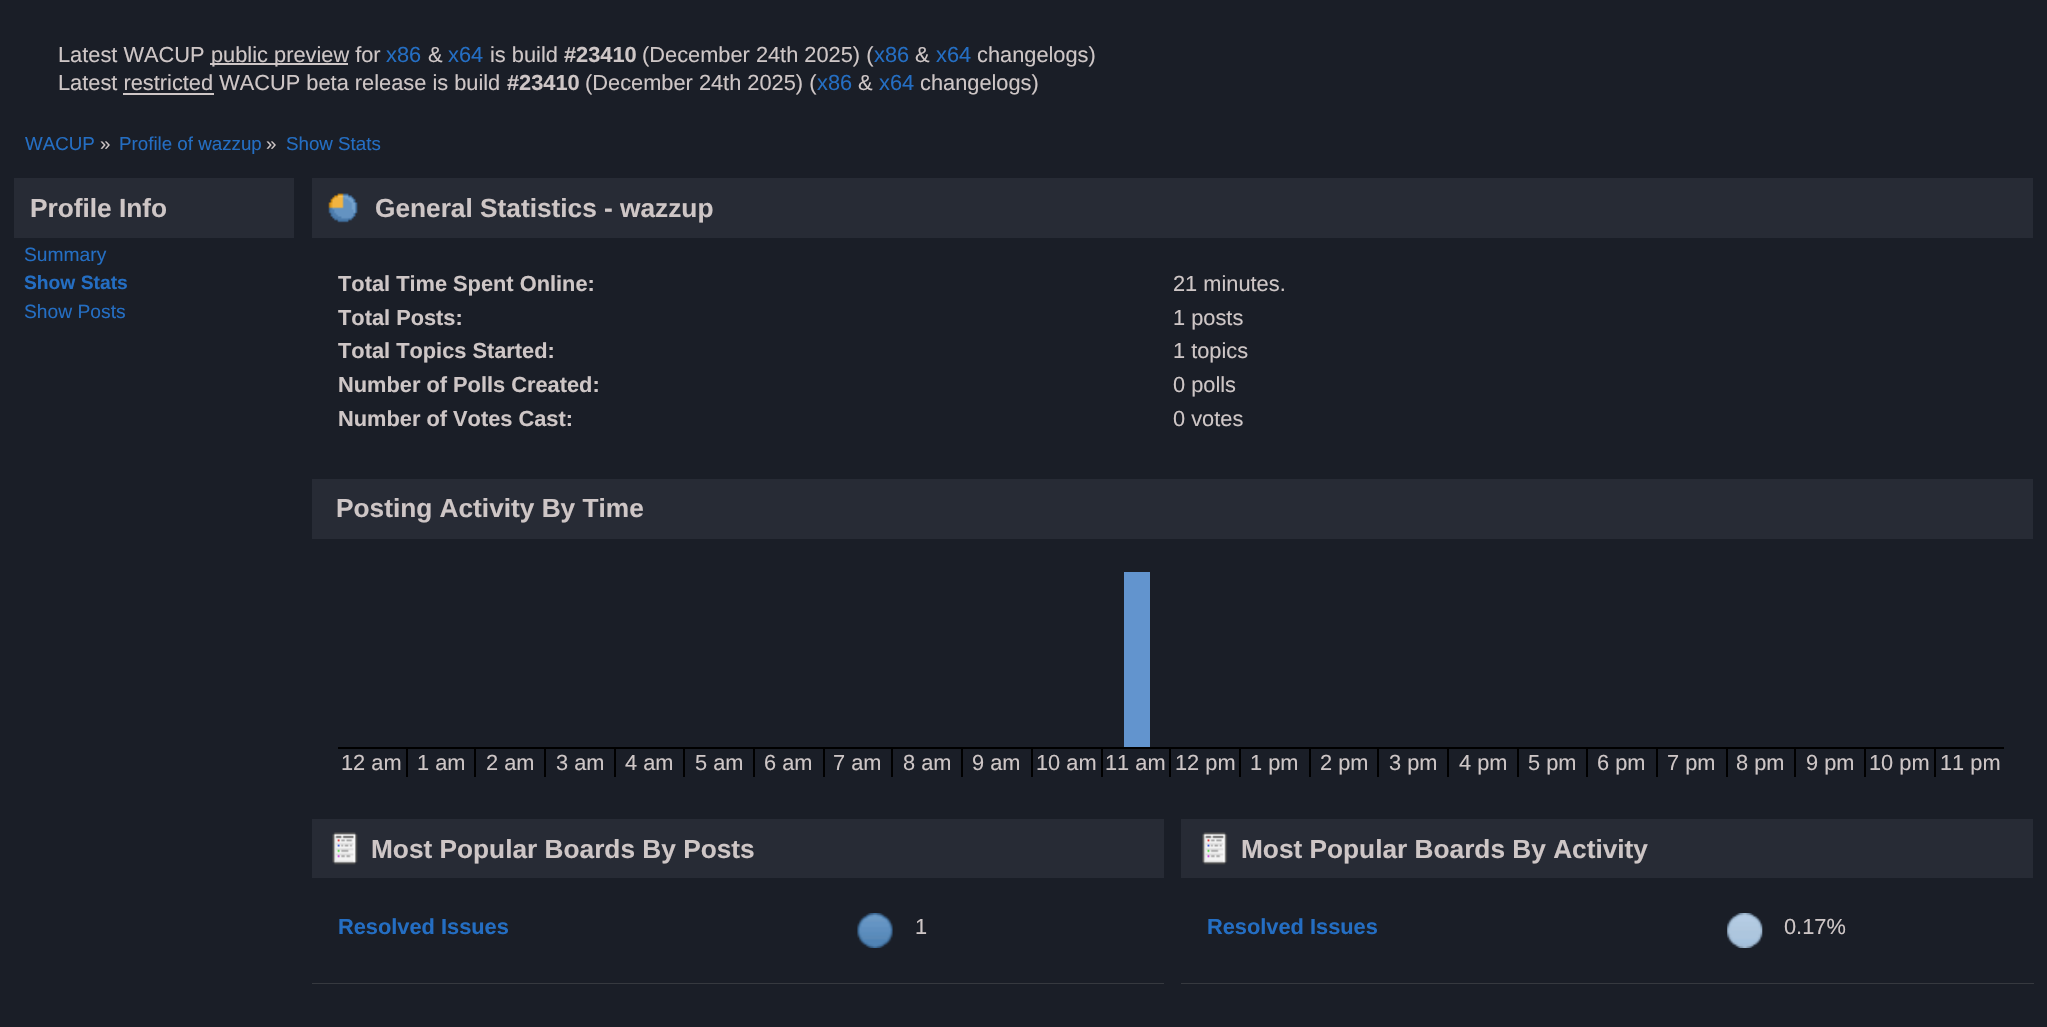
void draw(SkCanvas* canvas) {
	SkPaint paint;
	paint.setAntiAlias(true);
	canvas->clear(0xff1a1e27);
	SkFont f1(fontMgr->matchFamilyStyle("Liberation Sans", SkFontStyle::Normal()), 21.8);
	f1.setSubpixel(true);
	paint.setColor(0xffcec6c6);
	canvas->drawString("Latest WACUP", 58, 62, f1, paint);
	canvas->drawRect(SkRect::MakeXYWH(210, 63, 138, 2), paint);
	canvas->drawString("public preview for", 211, 62, f1, paint);
	paint.setColor(0xff246ec3);
	canvas->drawString("x86", 386, 62, f1, paint);
	paint.setColor(0xffcec6c6);
	canvas->drawString("&", 428, 62, f1, paint);
	paint.setColor(0xff246ec3);
	canvas->drawString("x64", 448, 62, f1, paint);
	paint.setColor(0xffcec6c6);
	canvas->drawString("is build", 490, 62, f1, paint);
	SkFont f2(fontMgr->matchFamilyStyle("Liberation Sans", SkFontStyle::Bold()), 21.8);
	f2.setSubpixel(true);
	canvas->drawString("#23410", 564, 62, f2, paint);
	canvas->drawString("(December 24th 2025) (", 642, 62, f1, paint);
	paint.setColor(0xff246ec3);
	canvas->drawString("x86", 874, 62, f1, paint);
	paint.setColor(0xffcec6c6);
	canvas->drawString("&", 915, 62, f1, paint);
	paint.setColor(0xff246ec3);
	canvas->drawString("x64", 936, 62, f1, paint);
	paint.setColor(0xffcec6c6);
	canvas->drawString("changelogs)", 977, 62, f1, paint);
	canvas->drawString("Latest restricted WACUP beta release is build", 58, 90, f1, paint);
	canvas->drawString("#23410", 507, 90, f2, paint);
	canvas->drawString("(December 24th 2025) (", 585, 90, f1, paint);
	paint.setColor(0xff246ec3);
	canvas->drawString("x86", 817, 90, f1, paint);
	paint.setColor(0xffcec6c6);
	canvas->drawString("&", 858, 90, f1, paint);
	paint.setColor(0xff246ec3);
	canvas->drawString("x64", 879, 90, f1, paint);
	paint.setColor(0xffcec6c6);
	canvas->drawString("changelogs)", 920, 90, f1, paint);
	canvas->drawRect(SkRect::MakeXYWH(123, 93, 91, 2), paint);
	SkFont f3(fontMgr->matchFamilyStyle("Liberation Sans", SkFontStyle::Normal()), 18.75);
	f3.setSubpixel(true);
	paint.setColor(0xff246ec3);
	canvas->drawString("WACUP", 25, 150, f3, paint);
	paint.setColor(0xffcec6c6);
	canvas->drawString("»", 100, 150, f3, paint);
	paint.setColor(0xff246ec3);
	canvas->drawString("Profile of wazzup", 119, 150, f3, paint);
	paint.setColor(0xffcec6c6);
	canvas->drawString("»", 266, 150, f3, paint);
	paint.setColor(0xff246ec3);
	canvas->drawString("Show Stats", 286, 150, f3, paint);
	paint.setColor(0xff272b35);
	canvas->drawRect(SkRect::MakeXYWH(14, 178, 280, 60), paint);
	SkFont f4(fontMgr->matchFamilyStyle("Liberation Sans", SkFontStyle::Bold()), 26.25);
	f4.setSubpixel(true);
	paint.setColor(0xffcec6c6);
	canvas->drawString("Profile Info", 30, 217, f4, paint);
	SkFont f5(fontMgr->matchFamilyStyle("Liberation Sans", SkFontStyle::Normal()), 19.25);
	f5.setSubpixel(true);
	paint.setColor(0xff246ec3);
	canvas->drawString("Summary", 24, 261, f5, paint);
	SkFont f6(fontMgr->matchFamilyStyle("Liberation Sans", SkFontStyle::Bold()), 19.25);
	f6.setSubpixel(true);
	canvas->drawString("Show Stats", 24, 289, f6, paint);
	canvas->drawString("Show Posts", 24, 318, f5, paint);
	paint.setColor(0xff272b35);
	canvas->drawRect(SkRect::MakeXYWH(312, 178, 1721, 60), paint);
	canvas->drawImageRect(SkImages::DeferredFromEncodedData(SkData::MakeFromFileName("img1.png")), SkRect::MakeXYWH(328, 193, 30, 30), SkSamplingOptions());
	paint.setColor(0xffcec6c6);
	canvas->drawString("General Statistics - wazzup", 375, 217, f4, paint);
	canvas->drawString("Total Time Spent Online:", 338, 291, f2, paint);
	canvas->drawString("21 minutes.", 1173, 291, f1, paint);
	canvas->drawString("Total Posts:", 338, 325, f2, paint);
	canvas->drawString("1 posts", 1173, 325, f1, paint);
	canvas->drawString("Total Topics Started:", 338, 358, f2, paint);
	canvas->drawString("1 topics", 1173, 358, f1, paint);
	canvas->drawString("Number of Polls Created:", 338, 392, f2, paint);
	canvas->drawString("0 polls", 1173, 392, f1, paint);
	canvas->drawString("Number of Votes Cast:", 338, 426, f2, paint);
	canvas->drawString("0 votes", 1173, 426, f1, paint);
	paint.setColor(0xff272b35);
	canvas->drawRect(SkRect::MakeXYWH(312, 479, 1721, 60), paint);
	paint.setColor(0xffcec6c6);
	canvas->drawString("Posting Activity By Time", 336, 517, f4, paint);
	paint.setColor(0xff000000);
	canvas->drawRect(SkRect::MakeXYWH(338, 747, 346, 2), paint);
	canvas->drawRect(SkRect::MakeXYWH(406, 747, 2, 30), paint);
	paint.setColor(0xffcec6c6);
	canvas->drawString("12 am", 341, 770, f1, paint);
	paint.setColor(0xff000000);
	canvas->drawRect(SkRect::MakeXYWH(474, 747, 2, 30), paint);
	paint.setColor(0xffcec6c6);
	canvas->drawString("1 am", 417, 770, f1, paint);
	paint.setColor(0xff000000);
	canvas->drawRect(SkRect::MakeXYWH(544, 747, 2, 30), paint);
	paint.setColor(0xffcec6c6);
	canvas->drawString("2 am", 486, 770, f1, paint);
	paint.setColor(0xff000000);
	canvas->drawRect(SkRect::MakeXYWH(614, 747, 2, 30), paint);
	paint.setColor(0xffcec6c6);
	canvas->drawString("3 am", 556, 770, f1, paint);
	paint.setColor(0xff000000);
	canvas->drawRect(SkRect::MakeXYWH(683, 747, 2, 30), paint);
	paint.setColor(0xffcec6c6);
	canvas->drawString("4 am", 625, 770, f1, paint);
	paint.setColor(0xff000000);
	canvas->drawRect(SkRect::MakeXYWH(684, 747, 70, 2), paint);
	canvas->drawRect(SkRect::MakeXYWH(753, 747, 2, 30), paint);
	paint.setColor(0xffcec6c6);
	canvas->drawString("5 am", 695, 770, f1, paint);
	paint.setColor(0xff000000);
	canvas->drawRect(SkRect::MakeXYWH(754, 747, 70, 2), paint);
	canvas->drawRect(SkRect::MakeXYWH(823, 747, 2, 30), paint);
	paint.setColor(0xffcec6c6);
	canvas->drawString("6 am", 764, 770, f1, paint);
	paint.setColor(0xff000000);
	canvas->drawRect(SkRect::MakeXYWH(824, 747, 763, 2), paint);
	canvas->drawRect(SkRect::MakeXYWH(891, 747, 2, 30), paint);
	paint.setColor(0xffcec6c6);
	canvas->drawString("7 am", 833, 770, f1, paint);
	paint.setColor(0xff000000);
	canvas->drawRect(SkRect::MakeXYWH(961, 747, 2, 30), paint);
	paint.setColor(0xffcec6c6);
	canvas->drawString("8 am", 903, 770, f1, paint);
	paint.setColor(0xff000000);
	canvas->drawRect(SkRect::MakeXYWH(1031, 747, 2, 30), paint);
	paint.setColor(0xffcec6c6);
	canvas->drawString("9 am", 972, 770, f1, paint);
	paint.setColor(0xff000000);
	canvas->drawRect(SkRect::MakeXYWH(1101, 747, 2, 30), paint);
	paint.setColor(0xffcec6c6);
	canvas->drawString("10 am", 1036, 770, f1, paint);
	paint.setColor(0xff6294ce);
	canvas->drawRect(SkRect::MakeXYWH(1124, 572, 26, 175), paint);
	paint.setColor(0xff000000);
	canvas->drawRect(SkRect::MakeXYWH(1169, 747, 2, 30), paint);
	paint.setColor(0xffcec6c6);
	canvas->drawString("11 am", 1105, 770, f1, paint);
	paint.setColor(0xff000000);
	canvas->drawRect(SkRect::MakeXYWH(1239, 747, 2, 30), paint);
	paint.setColor(0xffcec6c6);
	canvas->drawString("12 pm", 1175, 770, f1, paint);
	paint.setColor(0xff000000);
	canvas->drawRect(SkRect::MakeXYWH(1309, 747, 2, 30), paint);
	paint.setColor(0xffcec6c6);
	canvas->drawString("1 pm", 1250, 770, f1, paint);
	paint.setColor(0xff000000);
	canvas->drawRect(SkRect::MakeXYWH(1377, 747, 2, 30), paint);
	paint.setColor(0xffcec6c6);
	canvas->drawString("2 pm", 1320, 770, f1, paint);
	paint.setColor(0xff000000);
	canvas->drawRect(SkRect::MakeXYWH(1447, 747, 2, 30), paint);
	paint.setColor(0xffcec6c6);
	canvas->drawString("3 pm", 1389, 770, f1, paint);
	paint.setColor(0xff000000);
	canvas->drawRect(SkRect::MakeXYWH(1517, 747, 2, 30), paint);
	paint.setColor(0xffcec6c6);
	canvas->drawString("4 pm", 1459, 770, f1, paint);
	paint.setColor(0xff000000);
	canvas->drawRect(SkRect::MakeXYWH(1586, 747, 2, 30), paint);
	paint.setColor(0xffcec6c6);
	canvas->drawString("5 pm", 1528, 770, f1, paint);
	paint.setColor(0xff000000);
	canvas->drawRect(SkRect::MakeXYWH(1587, 747, 70, 2), paint);
	canvas->drawRect(SkRect::MakeXYWH(1656, 747, 2, 30), paint);
	paint.setColor(0xffcec6c6);
	canvas->drawString("6 pm", 1597, 770, f1, paint);
	paint.setColor(0xff000000);
	canvas->drawRect(SkRect::MakeXYWH(1657, 747, 70, 2), paint);
	canvas->drawRect(SkRect::MakeXYWH(1726, 747, 2, 30), paint);
	paint.setColor(0xffcec6c6);
	canvas->drawString("7 pm", 1667, 770, f1, paint);
	paint.setColor(0xff000000);
	canvas->drawRect(SkRect::MakeXYWH(1727, 747, 277, 2), paint);
	canvas->drawRect(SkRect::MakeXYWH(1794, 747, 2, 30), paint);
	paint.setColor(0xffcec6c6);
	canvas->drawString("8 pm", 1736, 770, f1, paint);
	paint.setColor(0xff000000);
	canvas->drawRect(SkRect::MakeXYWH(1864, 747, 2, 30), paint);
	paint.setColor(0xffcec6c6);
	canvas->drawString("9 pm", 1806, 770, f1, paint);
	paint.setColor(0xff000000);
	canvas->drawRect(SkRect::MakeXYWH(1934, 747, 2, 30), paint);
	paint.setColor(0xffcec6c6);
	canvas->drawString("10 pm", 1869, 770, f1, paint);
	canvas->drawString("11 pm", 1940, 770, f1, paint);
	paint.setColor(0xff272b35);
	canvas->drawRect(SkRect::MakeXYWH(312, 819, 852, 59), paint);
	canvas->drawImageRect(SkImages::DeferredFromEncodedData(SkData::MakeFromFileName("img2.png")), SkRect::MakeXYWH(332, 832, 26, 33), SkSamplingOptions());
	paint.setColor(0xffcec6c6);
	canvas->drawString("Most Popular Boards By Posts", 371, 858, f4, paint);
	paint.setColor(0xff246ec3);
	canvas->drawString("Resolved Issues", 338, 934, f2, paint);
	canvas->drawImageRect(SkImages::DeferredFromEncodedData(SkData::MakeFromFileName("img3.png")), SkRect::MakeXYWH(857, 913, 36, 35), SkSamplingOptions());
	paint.setColor(0xffcec6c6);
	canvas->drawString("1", 915, 934, f1, paint);
	paint.setColor(0xff36393f);
	canvas->drawRect(SkRect::MakeXYWH(312, 983, 852, 1), paint);
	paint.setColor(0xff272b35);
	canvas->drawRect(SkRect::MakeXYWH(1181, 819, 852, 59), paint);
	canvas->drawImageRect(SkImages::DeferredFromEncodedData(SkData::MakeFromFileName("img4.png")), SkRect::MakeXYWH(1202, 832, 26, 33), SkSamplingOptions());
	paint.setColor(0xffcec6c6);
	canvas->drawString("Most Popular Boards By Activity", 1241, 858, f4, paint);
	paint.setColor(0xff246ec3);
	canvas->drawString("Resolved Issues", 1207, 934, f2, paint);
	canvas->drawImageRect(SkImages::DeferredFromEncodedData(SkData::MakeFromFileName("img5.png")), SkRect::MakeXYWH(1727, 913, 36, 35), SkSamplingOptions());
	paint.setColor(0xffcec6c6);
	canvas->drawString("0.17%", 1784, 934, f1, paint);
	paint.setColor(0xff36393f);
	canvas->drawRect(SkRect::MakeXYWH(1181, 983, 853, 1), paint);
}
